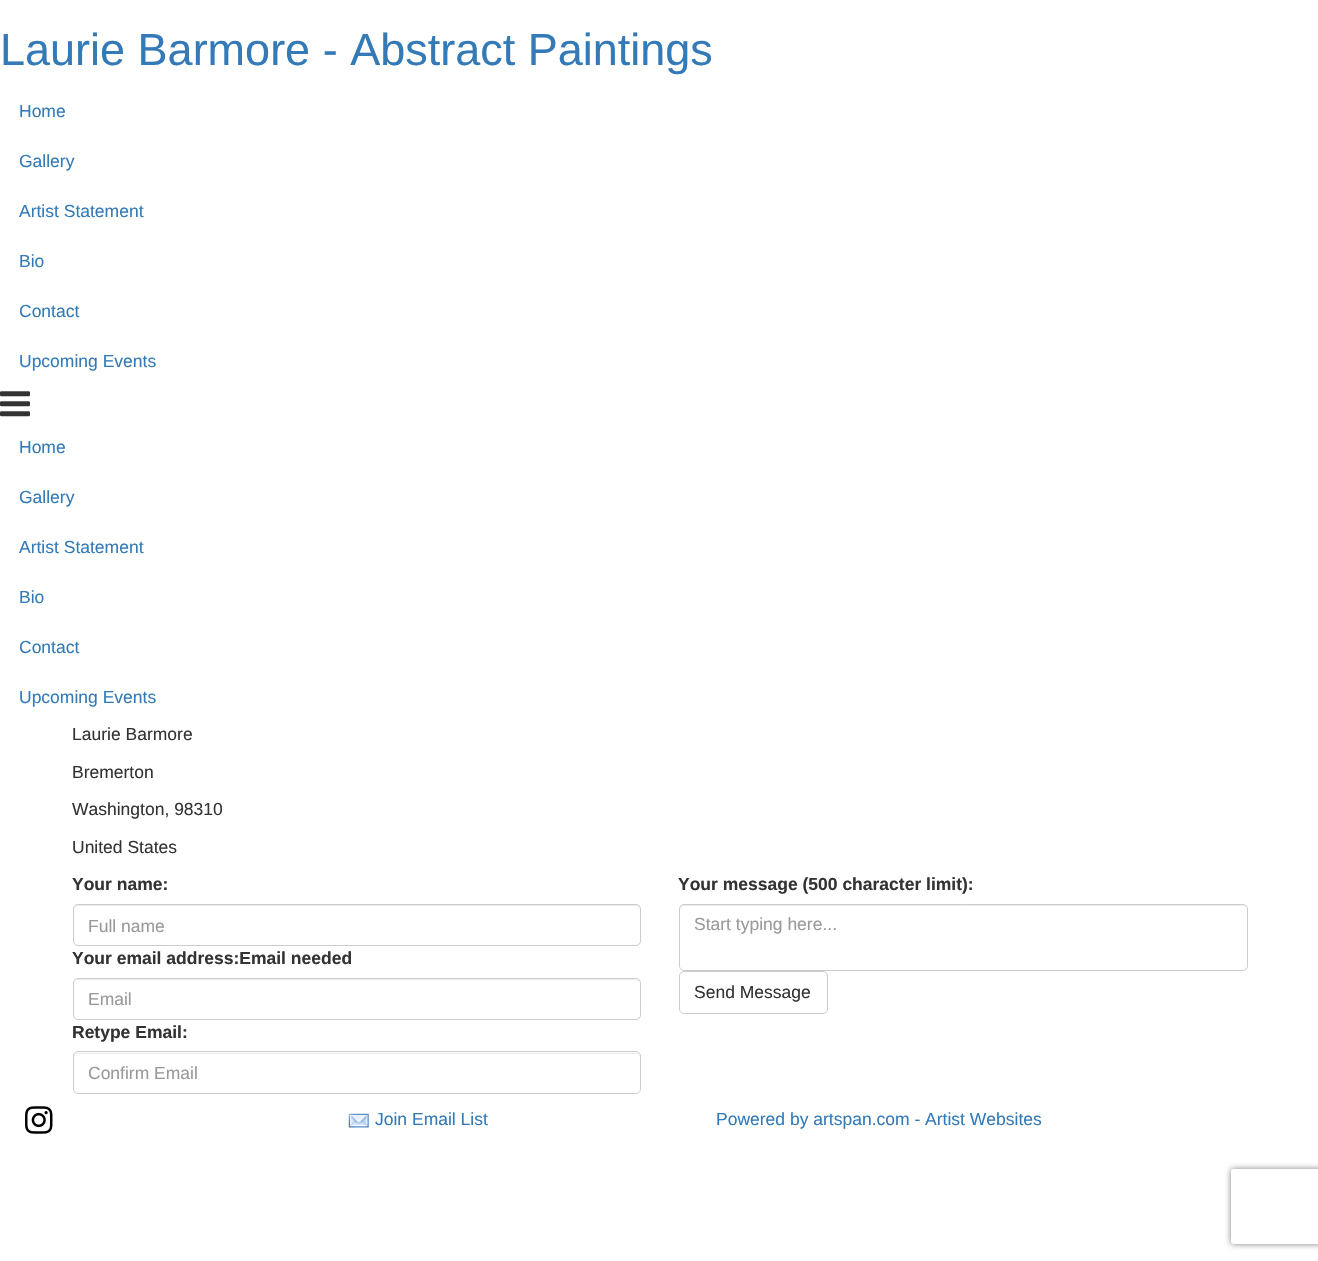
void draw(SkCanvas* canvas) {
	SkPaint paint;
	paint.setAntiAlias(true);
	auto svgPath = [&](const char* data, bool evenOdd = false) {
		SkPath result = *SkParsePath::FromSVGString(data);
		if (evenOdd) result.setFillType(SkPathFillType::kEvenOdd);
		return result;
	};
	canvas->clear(0xffffffff);
	SkFont f1(fontMgr->matchFamilyStyle("Liberation Sans", SkFontStyle::Normal()), 45);
	f1.setSubpixel(true);
	paint.setColor(0xff337ab7);
	canvas->drawString("Laurie Barmore - Abstract Paintings", 0, 65, f1, paint);
	SkFont f2(fontMgr->matchFamilyStyle("Liberation Sans", SkFontStyle::Normal()), 17.5);
	f2.setSubpixel(true);
	canvas->drawString("Home", 19, 117, f2, paint);
	canvas->drawString("Gallery", 19, 167, f2, paint);
	canvas->drawString("Artist Statement", 19, 217, f2, paint);
	canvas->drawString("Bio", 19, 267, f2, paint);
	canvas->drawString("Contact", 19, 317, f2, paint);
	canvas->drawString("Upcoming Events", 19, 367, f2, paint);
	canvas->drawImageRect(SkImages::DeferredFromEncodedData(SkData::MakeFromFileName("img1.png")), SkRect::MakeXYWH(0, 391, 30, 26), SkSamplingOptions());
	canvas->drawString("Home", 19, 453, f2, paint);
	canvas->drawString("Gallery", 19, 503, f2, paint);
	canvas->drawString("Artist Statement", 19, 553, f2, paint);
	canvas->drawString("Bio", 19, 603, f2, paint);
	canvas->drawString("Contact", 19, 653, f2, paint);
	canvas->drawString("Upcoming Events", 19, 703, f2, paint);
	paint.setColor(0xff333333);
	canvas->drawString("Laurie Barmore", 72, 740, f2, paint);
	canvas->drawString("Bremerton", 72, 778, f2, paint);
	canvas->drawString("Washington, 98310", 72, 815, f2, paint);
	canvas->drawString("United States", 72, 853, f2, paint);
	SkFont f3(fontMgr->matchFamilyStyle("Liberation Sans", SkFontStyle::Bold()), 17.5);
	f3.setSubpixel(true);
	canvas->drawString("Your name:", 72, 890, f3, paint);
	paint.setColor(0xffececec);
	canvas->drawPath(svgPath("M78 906H636C638 906 640 908 640 910C640 907 639 905 636 905H78C75 905 74 907 74 910C74 908 75 906 78 906Z"), paint);
	paint.setStroke(true);
	paint.setStrokeWidth(1);
	paint.setColor(0xffcccccc);
	canvas->drawRoundRect(SkRect::MakeXYWH(73.5, 904.5, 567, 41), 4.5, 4.5, paint);
	paint.setStroke(false);
	paint.setColor(0xff999999);
	canvas->drawString("Full name", 88, 932, f2, paint);
	paint.setColor(0xff333333);
	canvas->drawString("Your email address:Email needed", 72, 964, f3, paint);
	paint.setColor(0xffececec);
	canvas->drawPath(svgPath("M78 980H636C638 980 640 982 640 984C640 981 639 979 636 979H78C75 979 74 981 74 984C74 982 75 980 78 980Z"), paint);
	paint.setStroke(true);
	paint.setColor(0xffcccccc);
	canvas->drawRoundRect(SkRect::MakeXYWH(73.5, 978.5, 567, 41), 4.5, 4.5, paint);
	paint.setStroke(false);
	paint.setColor(0xff999999);
	canvas->drawString("Email", 88, 1005, f2, paint);
	paint.setColor(0xff333333);
	canvas->drawString("Retype Email:", 72, 1038, f3, paint);
	paint.setColor(0xffececec);
	canvas->drawPath(svgPath("M78 1054H636C638 1054 640 1055 640 1058C640 1055 639 1053 636 1053H78C75 1053 74 1055 74 1058C74 1055 75 1054 78 1054Z"), paint);
	paint.setStroke(true);
	paint.setColor(0xffcccccc);
	canvas->drawRoundRect(SkRect::MakeXYWH(73.5, 1051.5, 567, 42), 4.5, 4.5, paint);
	paint.setStroke(false);
	paint.setColor(0xff999999);
	canvas->drawString("Confirm Email", 88, 1079, f2, paint);
	paint.setColor(0xff333333);
	canvas->drawString("Your message (500 character limit):", 678, 890, f3, paint);
	paint.setColor(0xffececec);
	canvas->drawPath(svgPath("M684 906H1242C1245 906 1246 908 1246 910C1246 907 1245 905 1242 905H684C681 905 680 907 680 910C680 908 682 906 684 906Z"), paint);
	paint.setStroke(true);
	paint.setColor(0xffcccccc);
	canvas->drawRoundRect(SkRect::MakeXYWH(679.5, 904.5, 568, 66), 4.5, 4.5, paint);
	paint.setStroke(false);
	paint.setColor(0xff999999);
	canvas->drawString("Start typing here...", 694, 930, f2, paint);
	paint.setStroke(true);
	paint.setColor(0xffcccccc);
	canvas->drawRoundRect(SkRect::MakeXYWH(679.5, 971.5, 148, 42), 4.5, 4.5, paint);
	paint.setStroke(false);
	paint.setColor(0xff333333);
	canvas->drawString("Send Message", 694, 998, f2, paint);
	canvas->drawImageRect(SkImages::DeferredFromEncodedData(SkData::MakeFromFileName("img2.png")), SkRect::MakeXYWH(25, 1106, 28, 28), SkSamplingOptions());
	canvas->drawImageRect(SkImages::DeferredFromEncodedData(SkData::MakeFromFileName("img3.png")), SkRect::MakeXYWH(348, 1113, 21, 15), SkSamplingOptions());
	paint.setColor(0xff337ab7);
	canvas->drawString("Join Email List", 375, 1125, f2, paint);
	canvas->drawString("Powered by artspan.com - Artist Websites", 716, 1125, f2, paint);
	canvas->save();
	canvas->clipPath(svgPath("M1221 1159H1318V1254H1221ZM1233.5 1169H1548.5C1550 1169 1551 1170 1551 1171.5V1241.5C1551 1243 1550 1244 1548.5 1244H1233.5C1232 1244 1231 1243 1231 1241.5V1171.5C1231 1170 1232 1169 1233.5 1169Z", true), true);
	paint.setColor(0xff808080);
	paint.setMaskFilter(SkMaskFilter::MakeBlur(kNormal_SkBlurStyle, 3));
	canvas->drawRoundRect(SkRect::MakeXYWH(1231, 1169, 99, 75), 2.5, 2.5, paint);
	paint.setMaskFilter(nullptr);
	canvas->restore();
}
